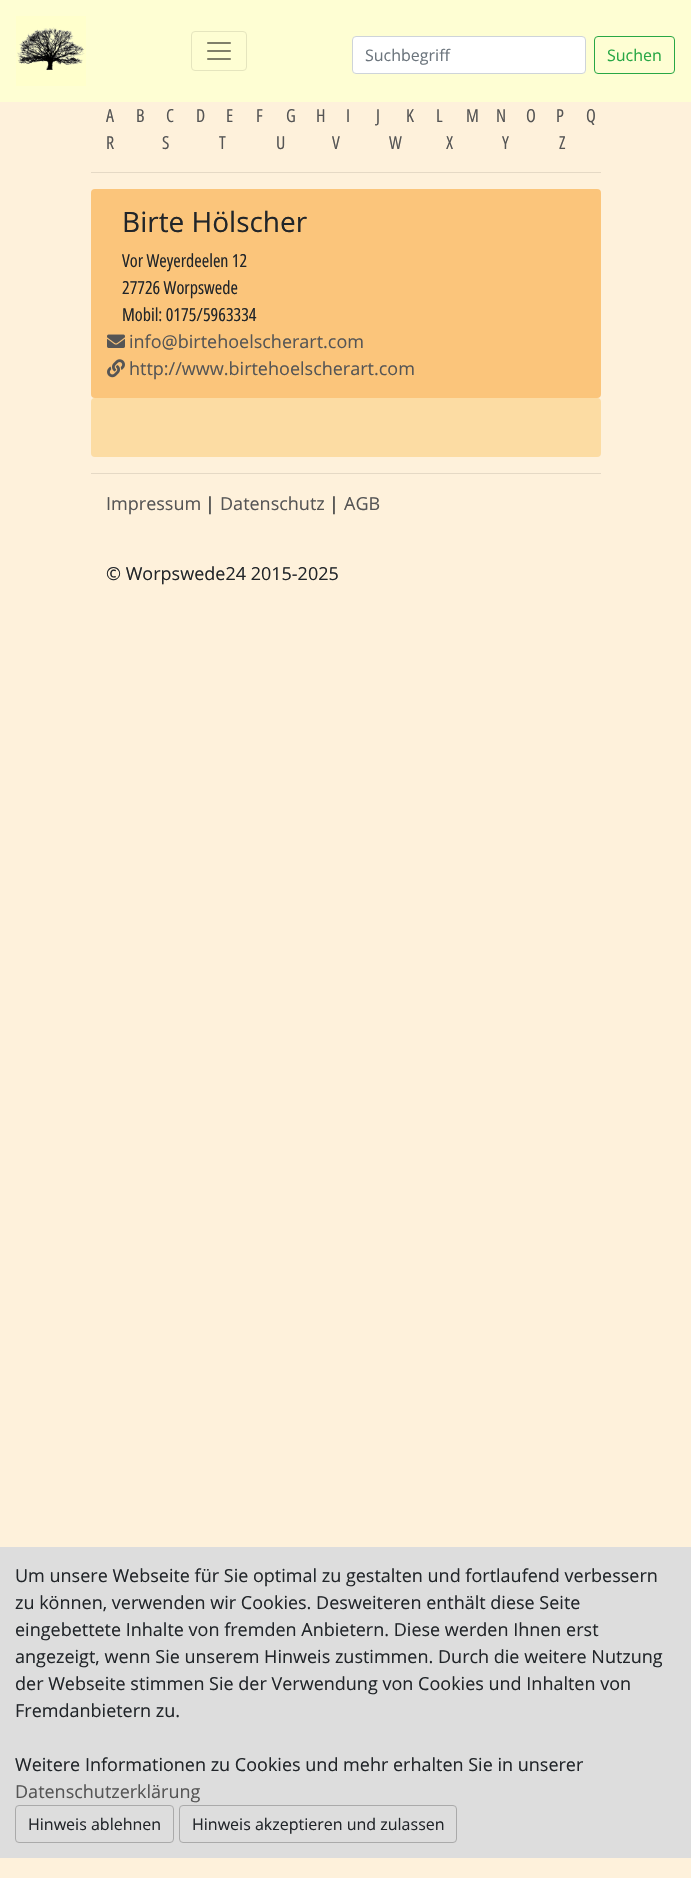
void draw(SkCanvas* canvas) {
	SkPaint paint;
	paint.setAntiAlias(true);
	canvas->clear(0xfffef1db);
	paint.setColor(0xfffefed3);
	canvas->drawRect(SkRect::MakeXYWH(0, 0, 691, 102), paint);
	canvas->drawImageRect(SkImages::DeferredFromEncodedData(SkData::MakeFromFileName("img1.png")), SkRect::MakeXYWH(16, 16, 70, 70), SkSamplingOptions());
	paint.setStroke(true);
	paint.setStrokeWidth(1);
	paint.setColor(0xffe5e5be);
	canvas->drawRoundRect(SkRect::MakeXYWH(191.5, 31.5, 55, 39), 3.5, 3.5, paint);
	canvas->drawImageRect(SkImages::DeferredFromEncodedData(SkData::MakeFromFileName("img2.png")), SkRect::MakeXYWH(207, 42, 24, 18), SkSamplingOptions());
	paint.setStroke(false);
	paint.setColor(0xffffffff);
	canvas->drawRoundRect(SkRect::MakeXYWH(352.5, 36.5, 233, 37), 3.5, 3.5, paint);
	paint.setStroke(true);
	paint.setColor(0xffced4da);
	canvas->drawRoundRect(SkRect::MakeXYWH(352.5, 36.5, 233, 37), 3.5, 3.5, paint);
	SkFont f1(fontMgr->matchFamilyStyle("Open Sans", SkFontStyle::Normal()), 16);
	f1.setSubpixel(true);
	paint.setStroke(false);
	paint.setColor(0xff6c757d);
	canvas->drawString("Suchbegriff", 365, 61, f1, paint);
	paint.setStroke(true);
	paint.setColor(0xff28a745);
	canvas->drawRoundRect(SkRect::MakeXYWH(594.5, 36.5, 80, 37), 3.5, 3.5, paint);
	paint.setStroke(false);
	canvas->drawString("Suchen", 607, 61, f1, paint);
	SkFont f2(fontMgr->matchFamilyStyle("Open Sans Condensed", SkFontStyle::Normal()), 18);
	f2.setSubpixel(true);
	paint.setColor(0xff555555);
	canvas->drawString("A", 106, 122, f2, paint);
	canvas->drawString("B", 136, 122, f2, paint);
	canvas->drawString("C", 166, 122, f2, paint);
	canvas->drawString("D", 196, 122, f2, paint);
	canvas->drawString("E", 226, 122, f2, paint);
	canvas->drawString("F", 256, 122, f2, paint);
	canvas->drawString("G", 286, 122, f2, paint);
	canvas->drawString("H", 316, 122, f2, paint);
	canvas->drawString("I", 346, 122, f2, paint);
	canvas->drawString("J", 376, 122, f2, paint);
	canvas->drawString("K", 406, 122, f2, paint);
	canvas->drawString("L", 436, 122, f2, paint);
	canvas->drawString("M", 466, 122, f2, paint);
	canvas->drawString("N", 496, 122, f2, paint);
	canvas->drawString("O", 526, 122, f2, paint);
	canvas->drawString("P", 556, 122, f2, paint);
	canvas->drawString("Q", 586, 122, f2, paint);
	canvas->drawString("R", 106, 149, f2, paint);
	canvas->drawString("S", 162, 149, f2, paint);
	canvas->drawString("T", 219, 149, f2, paint);
	canvas->drawString("U", 276, 149, f2, paint);
	canvas->drawString("V", 332, 149, f2, paint);
	canvas->drawString("W", 389, 149, f2, paint);
	canvas->drawString("X", 446, 149, f2, paint);
	canvas->drawString("Y", 502, 149, f2, paint);
	canvas->drawString("Z", 559, 149, f2, paint);
	paint.setColor(0xffe5d9c5);
	canvas->drawRect(SkRect::MakeXYWH(91, 172, 510, 1), paint);
	paint.setColor(0xfffbc57b);
	canvas->drawRoundRect(SkRect::MakeXYWH(91, 189, 510, 209), 4, 4, paint);
	SkFont f3(fontMgr->matchFamilyStyle("Open Sans", SkFontStyle::Normal()), 28);
	f3.setSubpixel(true);
	paint.setColor(0xff212529);
	canvas->drawString("Birte Hölscher", 122, 232, f3, paint);
	canvas->drawString("Vor Weyerdeelen 12", 122, 267, f2, paint);
	canvas->drawString("27726 Worpswede", 122, 294, f2, paint);
	canvas->drawString("Mobil: 0175/5963334", 122, 321, f2, paint);
	canvas->drawImageRect(SkImages::DeferredFromEncodedData(SkData::MakeFromFileName("img3.png")), SkRect::MakeXYWH(107, 334, 18, 14), SkSamplingOptions());
	SkFont f4(fontMgr->matchFamilyStyle("Open Sans", SkFontStyle::Normal()), 18);
	f4.setSubpixel(true);
	paint.setColor(0xff555555);
	canvas->drawString("info@birtehoelscherart.com", 129, 348, f4, paint);
	canvas->drawImageRect(SkImages::DeferredFromEncodedData(SkData::MakeFromFileName("img4.png")), SkRect::MakeXYWH(107, 359, 18, 19), SkSamplingOptions());
	canvas->drawString("http://www.birtehoelscherart.com", 129, 375, f4, paint);
	paint.setColor(0xfffcdca3);
	canvas->drawRoundRect(SkRect::MakeXYWH(91, 398, 510, 59), 4, 4, paint);
	paint.setColor(0xffe5d9c5);
	canvas->drawRect(SkRect::MakeXYWH(91, 473, 510, 1), paint);
	paint.setColor(0xff555555);
	canvas->drawString("Impressum", 106, 510, f4, paint);
	paint.setColor(0xff212529);
	canvas->drawString("|", 205, 510, f4, paint);
	paint.setColor(0xff555555);
	canvas->drawString("Datenschutz", 220, 510, f4, paint);
	paint.setColor(0xff212529);
	canvas->drawString("|", 329, 510, f4, paint);
	paint.setColor(0xff555555);
	canvas->drawString("AGB", 344, 510, f4, paint);
	paint.setColor(0xff212529);
	canvas->drawString("© Worpswede24 2015-2025", 106, 580, f4, paint);
	paint.setColor(0xffdddddd);
	canvas->drawRect(SkRect::MakeXYWH(0, 1547, 691, 311), paint);
	paint.setColor(0xff212529);
	canvas->drawString("Um unsere Webseite für Sie optimal zu gestalten und fortlaufend verbessern", 15, 1582, f4, paint);
	canvas->drawString("zu können, verwenden wir Cookies. Desweiteren enthält diese Seite", 15, 1609, f4, paint);
	canvas->drawString("eingebettete Inhalte von fremden Anbietern. Diese werden Ihnen erst", 15, 1636, f4, paint);
	canvas->drawString("angezeigt, wenn Sie unserem Hinweis zustimmen. Durch die weitere Nutzung", 15, 1663, f4, paint);
	canvas->drawString("der Webseite stimmen Sie der Verwendung von Cookies und Inhalten von", 15, 1690, f4, paint);
	canvas->drawString("Fremdanbietern zu.", 15, 1717, f4, paint);
	canvas->drawString("Weitere Informationen zu Cookies und mehr erhalten Sie in unserer", 15, 1771, f4, paint);
	paint.setColor(0xff555555);
	canvas->drawString("Datenschutzerklärung", 15, 1798, f4, paint);
	paint.setStroke(true);
	paint.setColor(0xffaaaaaa);
	canvas->drawRoundRect(SkRect::MakeXYWH(15.5, 1805.5, 158, 37), 3.5, 3.5, paint);
	paint.setStroke(false);
	paint.setColor(0xff212529);
	canvas->drawString("Hinweis ablehnen", 28, 1830, f1, paint);
	paint.setStroke(true);
	paint.setColor(0xffaaaaaa);
	canvas->drawRoundRect(SkRect::MakeXYWH(179.5, 1805.5, 277, 37), 3.5, 3.5, paint);
	paint.setStroke(false);
	paint.setColor(0xff212529);
	canvas->drawString("Hinweis akzeptieren und zulassen", 192, 1830, f1, paint);
}
